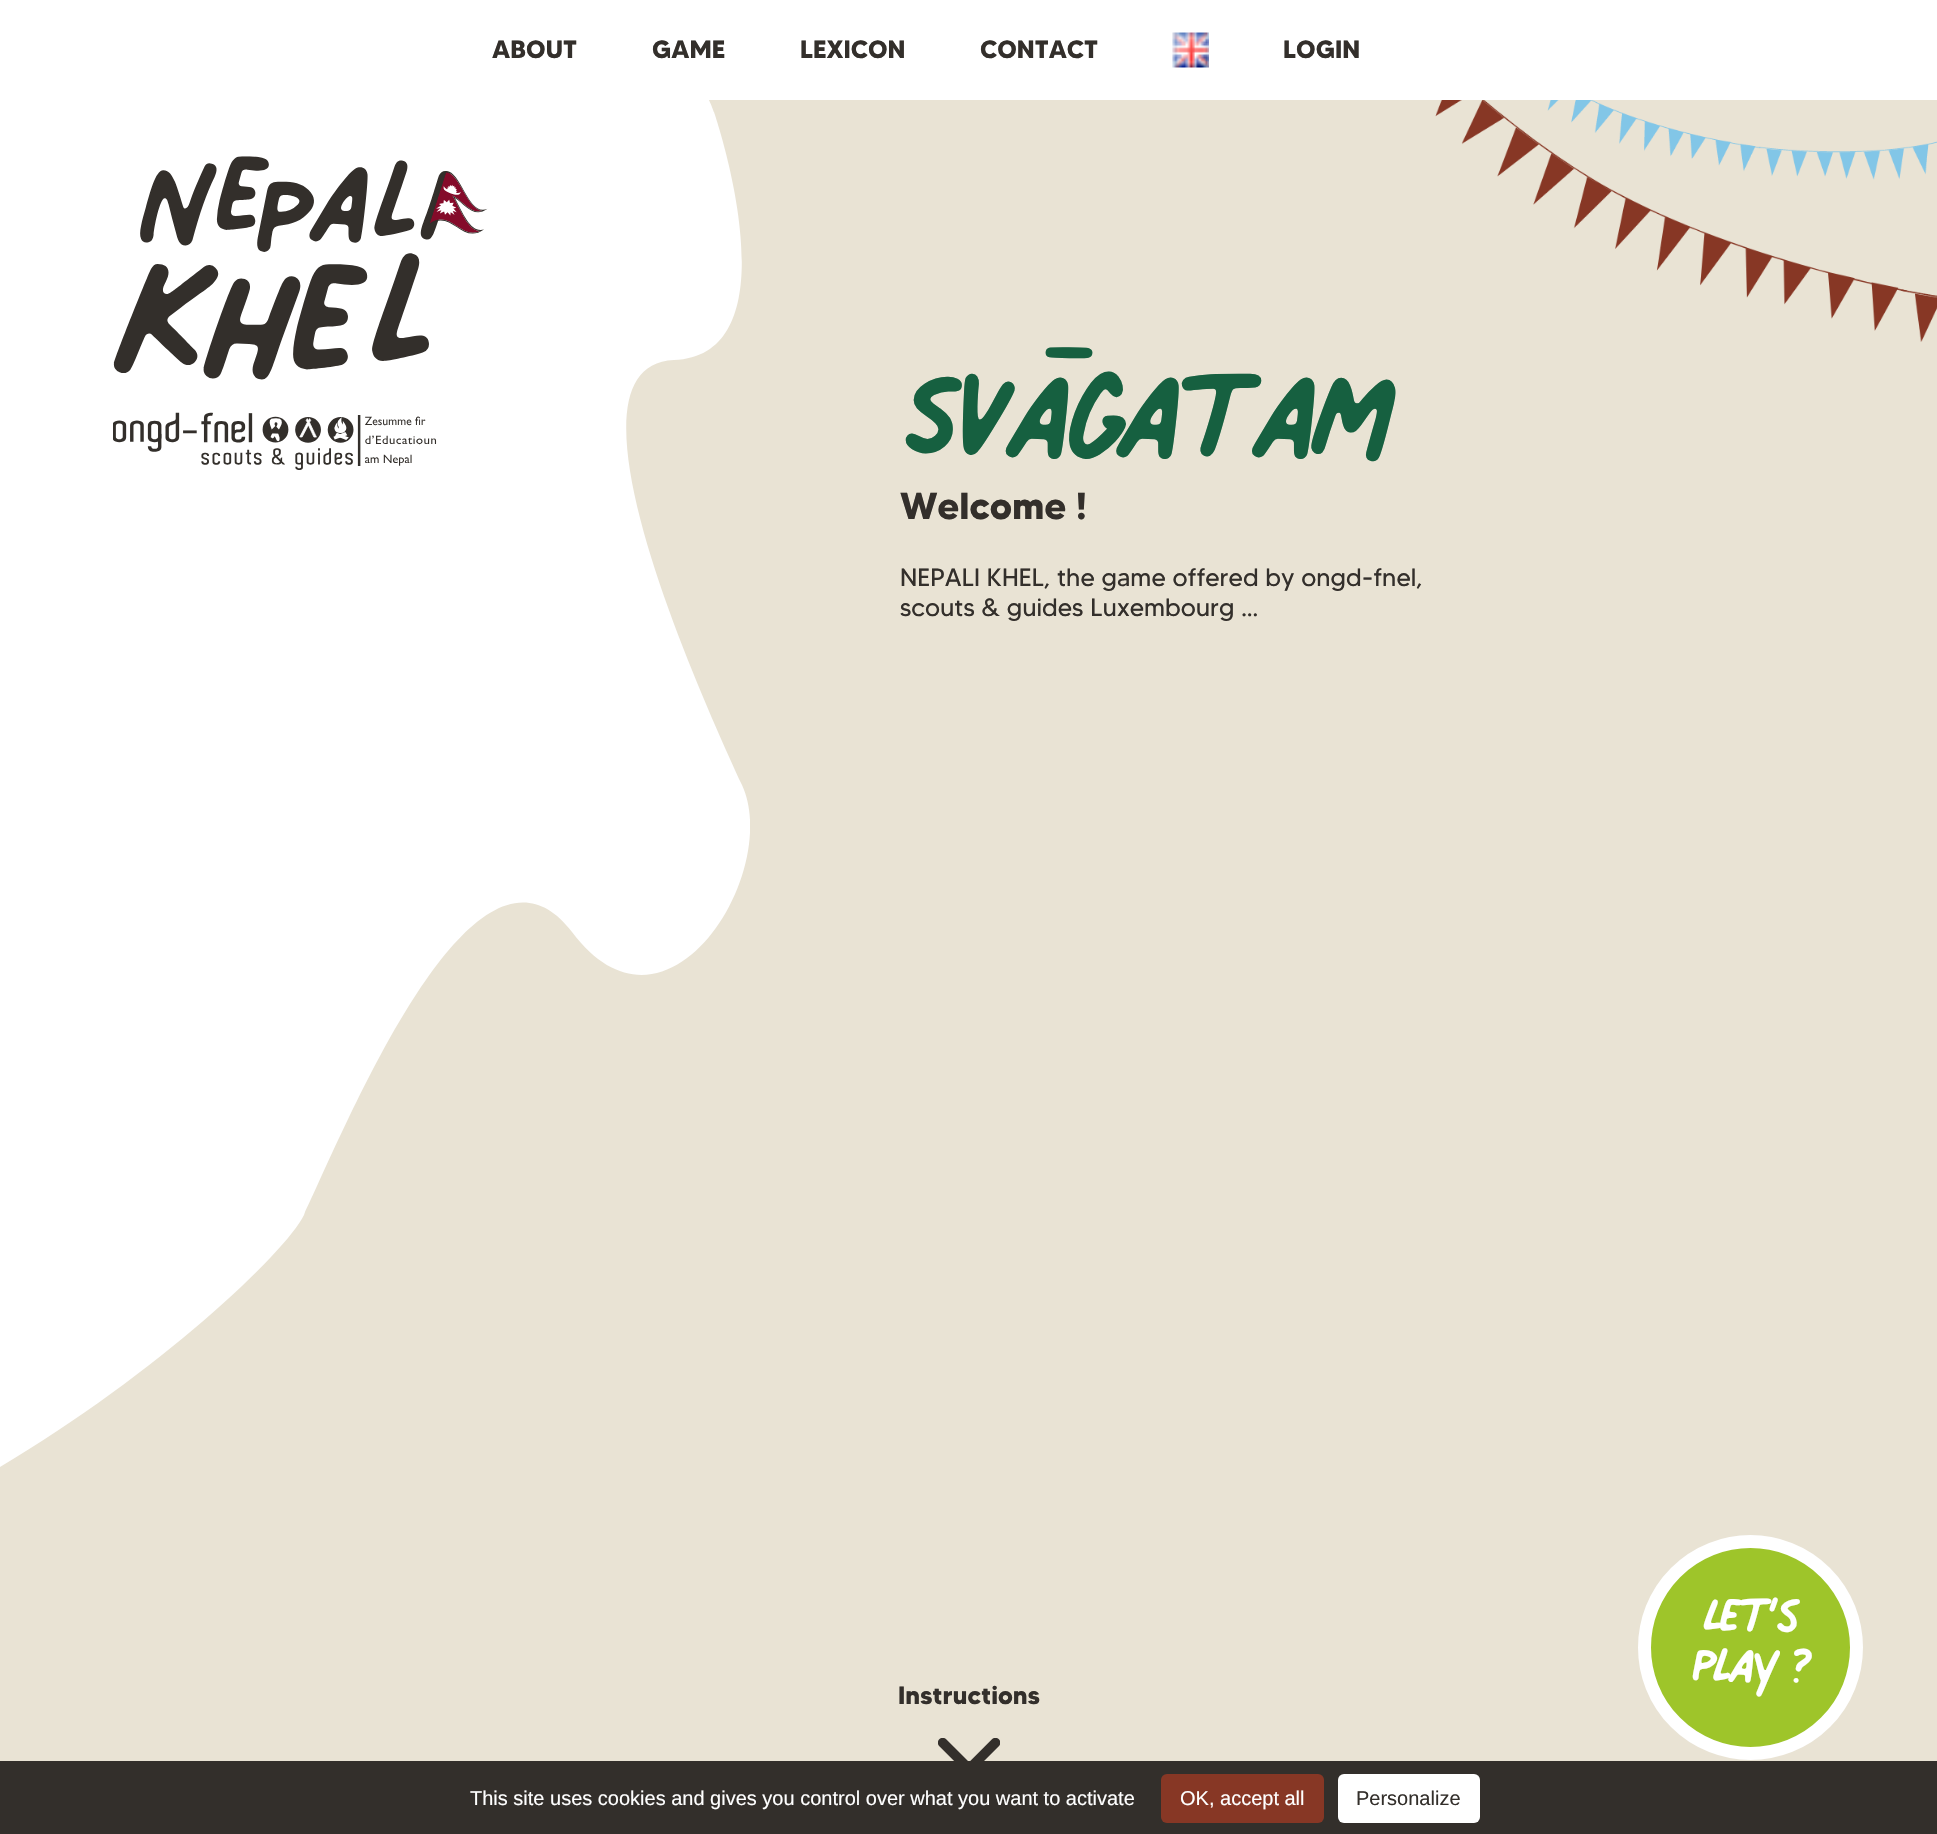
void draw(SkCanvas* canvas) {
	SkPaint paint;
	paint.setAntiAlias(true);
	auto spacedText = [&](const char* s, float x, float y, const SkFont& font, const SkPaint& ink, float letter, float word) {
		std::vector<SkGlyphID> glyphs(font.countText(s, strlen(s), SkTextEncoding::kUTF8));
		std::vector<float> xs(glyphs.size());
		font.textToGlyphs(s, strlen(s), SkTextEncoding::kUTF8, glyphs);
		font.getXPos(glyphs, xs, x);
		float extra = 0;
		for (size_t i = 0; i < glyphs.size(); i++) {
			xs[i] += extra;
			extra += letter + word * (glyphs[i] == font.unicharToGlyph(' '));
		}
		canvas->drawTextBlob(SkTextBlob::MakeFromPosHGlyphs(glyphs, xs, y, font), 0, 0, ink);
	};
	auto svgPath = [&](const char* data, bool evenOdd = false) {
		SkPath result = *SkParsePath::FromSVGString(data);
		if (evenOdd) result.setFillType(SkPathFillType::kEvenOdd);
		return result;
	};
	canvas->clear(0xffe9e3d4);
	canvas->save();
	canvas->clipRect(SkRect::MakeXYWH(0, 0, 750, 1580));
	paint.setColor(0xffffffff);
	canvas->drawPath(svgPath("M-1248-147C-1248-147-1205 112-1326 269C-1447 426-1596 897-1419 940C-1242 983-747 758-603 1334C-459 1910 259 1308 304 1215C348 1122 476 805 572 932C667 1059 782 872 742 785C702 697 550 365 674 360C798 355 714 112 714 112C714 112 581-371-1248-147Z", true), paint);
	canvas->restore();
	canvas->drawRect(SkRect::MakeXYWH(618, 0, 1319, 100), paint);
	SkFont f1(fontMgr->matchFamilyStyle("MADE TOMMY", SkFontStyle::Bold()), 25);
	f1.setSubpixel(true);
	paint.setColor(0xff332f2b);
	canvas->drawString("ABOUT", 492, 58, f1, paint);
	canvas->drawString("GAME", 652, 58, f1, paint);
	canvas->drawString("LEXICON", 800, 58, f1, paint);
	canvas->drawString("CONTACT", 980, 58, f1, paint);
	canvas->drawImageRect(SkImages::DeferredFromEncodedData(SkData::MakeFromFileName("img1.png")), SkRect::MakeXYWH(1172, 32, 37, 36), SkSamplingOptions());
	canvas->drawString("LOGIN", 1283, 58, f1, paint);
	canvas->drawImageRect(SkImages::DeferredFromEncodedData(SkData::MakeFromFileName("img3.png")), SkRect::MakeXYWH(1547, 100, 390, 80), SkSamplingOptions());
	canvas->drawImageRect(SkImages::DeferredFromEncodedData(SkData::MakeFromFileName("img2.png")), SkRect::MakeXYWH(1435, 100, 502, 242), SkSamplingOptions());
	canvas->drawImageRect(SkImages::DeferredFromEncodedData(SkData::MakeFromFileName("img4.png")), SkRect::MakeXYWH(113, 156, 375, 314), SkSamplingOptions());
	SkFont f2(fontMgr->matchFamilyStyle("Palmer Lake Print", SkFontStyle::Normal()), 250);
	f2.setSubpixel(true);
	paint.setColor(0xff166040);
	spacedText("Svāgatam", 900, 460, f2, paint, -12.5, 0);
	SkFont f3(fontMgr->matchFamilyStyle("MADE TOMMY", SkFontStyle::Bold()), 37.5);
	f3.setSubpixel(true);
	paint.setColor(0xff332f2b);
	canvas->drawString("Welcome !", 900, 519, f3, paint);
	SkFont f4(fontMgr->matchFamilyStyle("MADE TOMMY", SkFontStyle::Normal()), 25);
	f4.setSubpixel(true);
	canvas->drawString("NEPALI KHEL, the game offered by ongd-fnel,", 900, 586, f4, paint);
	canvas->drawString("scouts & guides Luxembourg …", 900, 616, f4, paint);
	canvas->drawString("Instructions", 898, 1704, f1, paint);
	canvas->drawImageRect(SkImages::DeferredFromEncodedData(SkData::MakeFromFileName("img5.png")), SkRect::MakeXYWH(938, 1738, 62, 23), SkSamplingOptions());
	paint.setColor(0xff9ec52a);
	canvas->drawCircle(1750.5, 1647.5, 106, paint);
	paint.setStroke(true);
	paint.setStrokeWidth(13);
	paint.setColor(0xffffffff);
	canvas->drawCircle(1750.5, 1647.5, 106, paint);
	SkFont f5(fontMgr->matchFamilyStyle("Palmer Lake Print", SkFontStyle::Normal()), 100);
	f5.setSubpixel(true);
	paint.setStroke(false);
	spacedText("Let’s", 1703, 1633, f5, paint, -5, 0);
	spacedText("play ?", 1692, 1683, f5, paint, -5, 0);
	paint.setColor(0xff332f2b);
	canvas->drawRect(SkRect::MakeXYWH(0, 1761, 1937, 73), paint);
	SkFont f6(fontMgr->matchFamilyStyle("Liberation Sans", SkFontStyle::Normal()), 20);
	f6.setSubpixel(true);
	paint.setColor(0xffffffff);
	canvas->drawString("This site uses cookies and gives you control over what you want to activate", 470, 1805, f6, paint);
	paint.setColor(0xff873725);
	canvas->drawRoundRect(SkRect::MakeXYWH(1161, 1774, 163, 49), 6, 6, paint);
	paint.setColor(0xffffffff);
	canvas->drawString("OK, accept all", 1180, 1805, f6, paint);
	canvas->drawRoundRect(SkRect::MakeXYWH(1338, 1774, 142, 49), 6, 6, paint);
	paint.setColor(0xff332f2b);
	canvas->drawString("Personalize", 1356, 1805, f6, paint);
}
